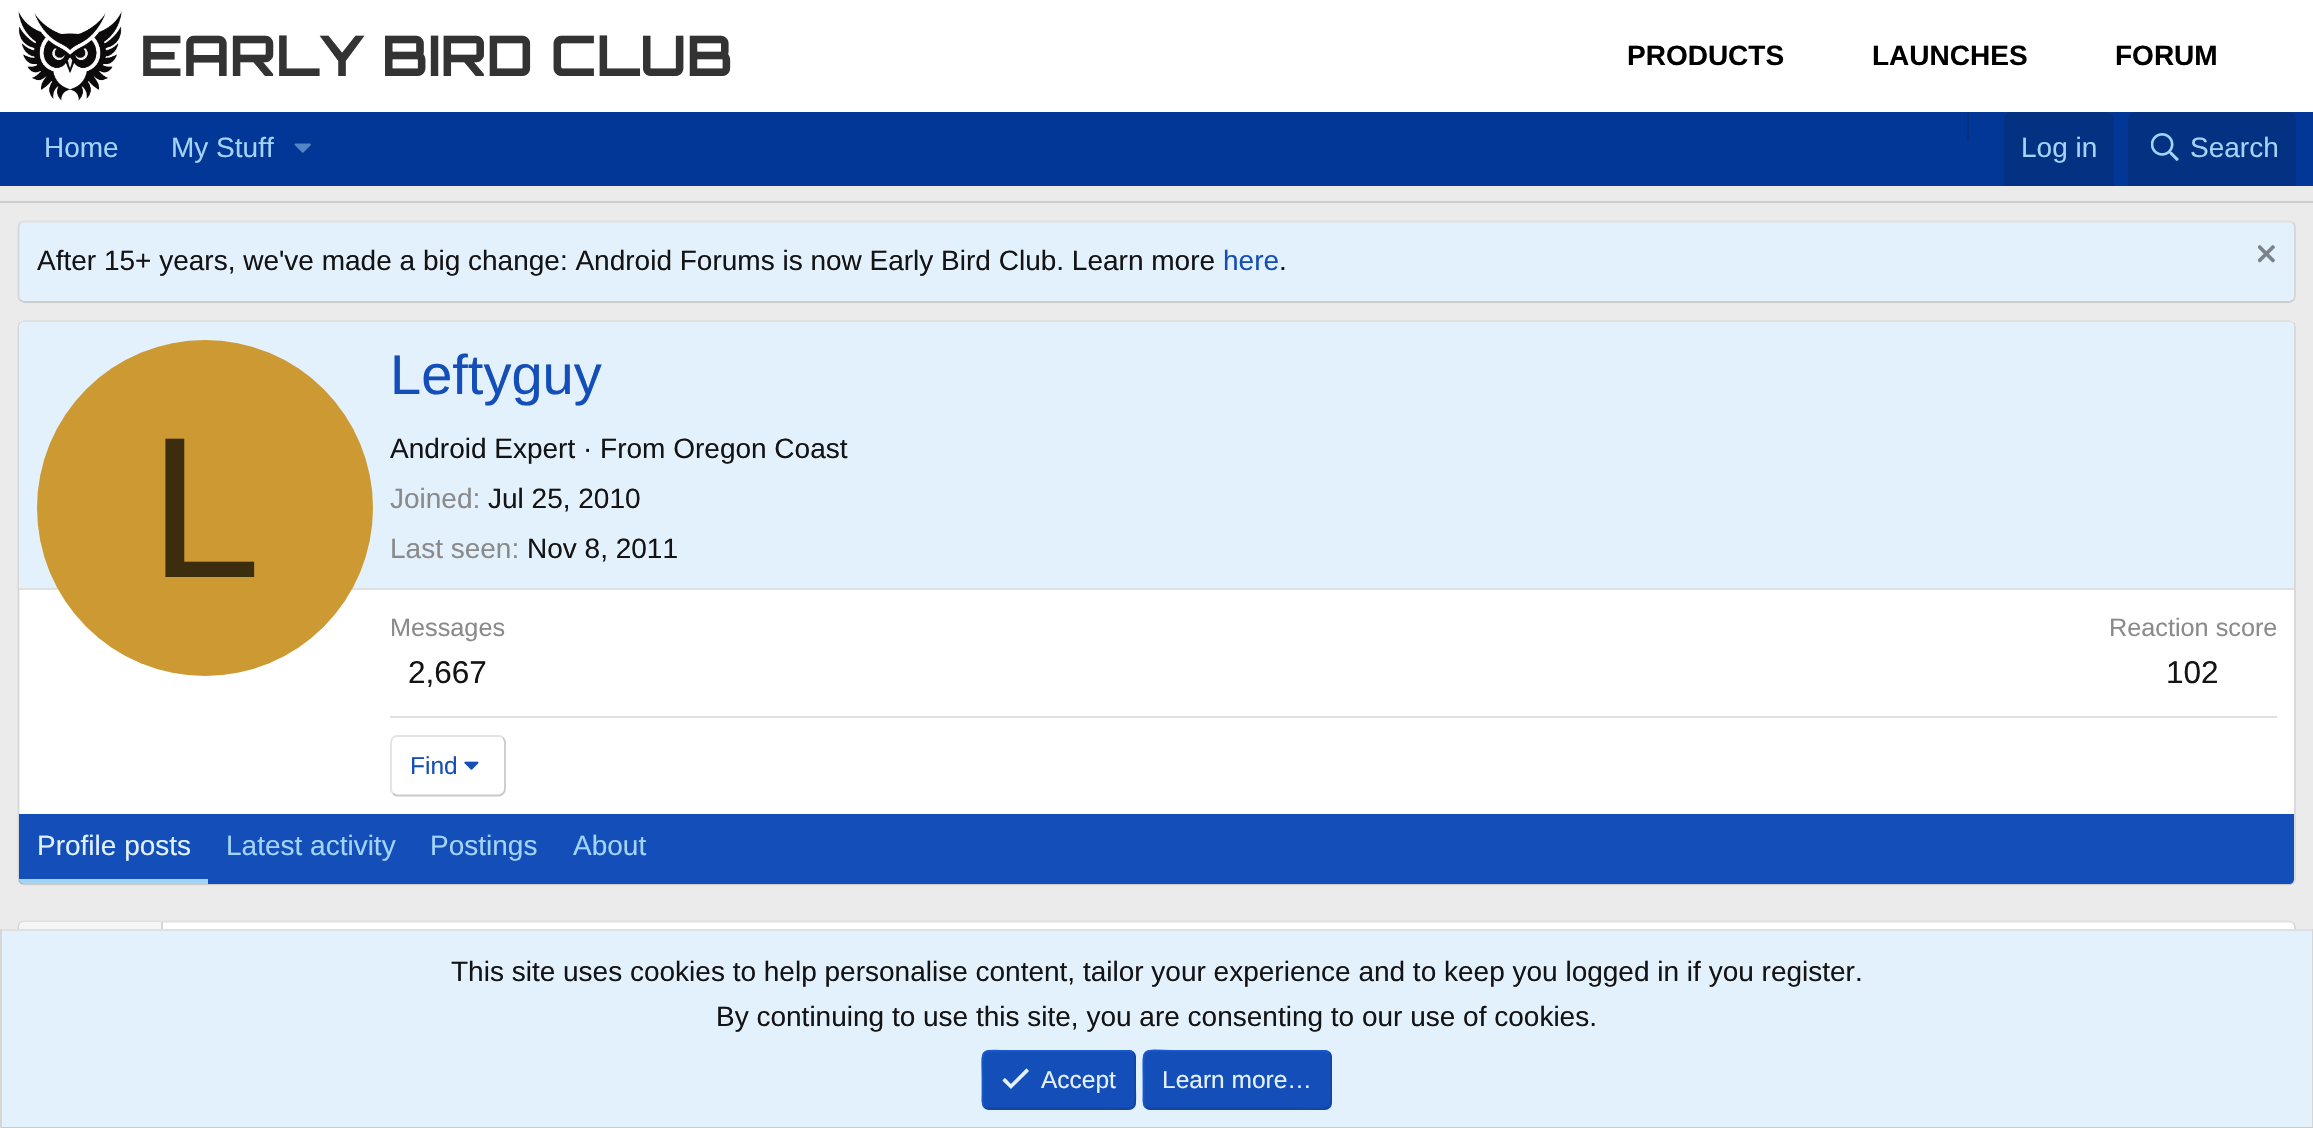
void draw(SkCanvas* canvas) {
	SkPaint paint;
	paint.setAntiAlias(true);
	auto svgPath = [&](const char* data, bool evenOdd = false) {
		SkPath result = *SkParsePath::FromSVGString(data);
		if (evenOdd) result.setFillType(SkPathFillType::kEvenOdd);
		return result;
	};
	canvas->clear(0xffebebeb);
	paint.setColor(0xffffffff);
	canvas->drawRect(SkRect::MakeXYWH(0, 0, 2313, 112), paint);
	canvas->drawImageRect(SkImages::DeferredFromEncodedData(SkData::MakeFromFileName("img1.png")), SkRect::MakeXYWH(18, 11, 104, 90), SkSamplingOptions());
	SkFont f1(fontMgr->matchFamilyStyle("Orbitron", SkFontStyle::Bold()), 56);
	f1.setSubpixel(true);
	paint.setColor(0xff333333);
	canvas->drawString("EARLY BIRD CLUB", 140, 76, f1, paint);
	SkFont f2(fontMgr->matchFamilyStyle("Liberation Sans", SkFontStyle::Bold()), 28);
	f2.setSubpixel(true);
	paint.setColor(0xff000000);
	canvas->drawString("PRODUCTS", 1627, 65, f2, paint);
	canvas->drawString("LAUNCHES", 1872, 65, f2, paint);
	canvas->drawString("FORUM", 2115, 65, f2, paint);
	paint.setColor(0xff023697);
	canvas->drawRect(SkRect::MakeXYWH(0, 112, 2313, 74), paint);
	SkFont f3(fontMgr->matchFamilyStyle("Liberation Sans", SkFontStyle::Normal()), 28);
	f3.setSubpixel(true);
	paint.setColor(0xffa3d4f5);
	canvas->drawString("Home", 44, 157, f3, paint);
	canvas->drawString("My Stuff", 171, 157, f3, paint);
	canvas->drawImageRect(SkImages::DeferredFromEncodedData(SkData::MakeFromFileName("img2.png")), SkRect::MakeXYWH(294, 143, 17, 10), SkSamplingOptions());
	paint.setColor(0xff053183);
	canvas->drawRect(SkRect::MakeXYWH(1967, 112, 2, 28), paint);
	canvas->drawPath(svgPath("M2011 112H2107C2111 112 2114 115 2114 119V186H2004V119C2004 115 2007 112 2011 112Z"), paint);
	paint.setColor(0xffa3d4f5);
	canvas->drawString("Log in", 2021, 157, f3, paint);
	paint.setColor(0xff053183);
	canvas->drawPath(svgPath("M2135 112H2289C2293 112 2296 115 2296 119V186H2128V119C2128 115 2131 112 2135 112Z"), paint);
	canvas->drawImageRect(SkImages::DeferredFromEncodedData(SkData::MakeFromFileName("img3.png")), SkRect::MakeXYWH(2151, 133, 28, 28), SkSamplingOptions());
	paint.setColor(0xffa3d4f5);
	canvas->drawString("Search", 2190, 157, f3, paint);
	paint.setColor(0xffcccccc);
	canvas->drawRect(SkRect::MakeXYWH(0, 201, 2313, 2), paint);
	paint.setColor(0xffe3f1fd);
	canvas->drawRoundRect(SkRect::MakeXYWH(18, 221, 2278, 82), 7, 7, paint);
	paint.setStroke(true);
	paint.setStrokeWidth(1.8);
	paint.setColor(0xffe0e0e0);
	canvas->drawPath(svgPath("M20 223C21.5 222 23 221.5 24.5 221.5H2289C2290.5 221.5 2292 222 2293.5 223"), paint);
	paint.setColor(0xffd6d6d6);
	canvas->drawPath(svgPath("M2293.5 223C2294.5 224.5 2295 226 2295 227.5V296C2295 297.5 2294.5 299 2293.5 300"), paint);
	paint.setColor(0xffcccccc);
	canvas->drawPath(svgPath("M2293.5 300C2292 301 2290.5 302 2289 302H24.5C23 302 21.5 301 20 300"), paint);
	paint.setColor(0xffd6d6d6);
	canvas->drawPath(svgPath("M20 300C19 299 18.5 297.5 18.5 296V227.5C18.5 226 19 224.5 20 223"), paint);
	paint.setStroke(false);
	paint.setColor(0xff141414);
	canvas->drawString("After 15+ years, we've made a big change: Android Forums is now Early Bird Club. Learn more", 37, 270, f3, paint);
	paint.setColor(0xff144eb8);
	canvas->drawString("here", 1223, 270, f3, paint);
	paint.setColor(0xff141414);
	canvas->drawString(".", 1279, 270, f3, paint);
	canvas->drawImageRect(SkImages::DeferredFromEncodedData(SkData::MakeFromFileName("img4.png")), SkRect::MakeXYWH(2258, 245, 17, 18), SkSamplingOptions());
	paint.setColor(0xffffffff);
	canvas->drawRoundRect(SkRect::MakeXYWH(18, 320, 2278, 566), 7, 7, paint);
	paint.setStroke(true);
	paint.setColor(0xffe0e0e0);
	canvas->drawPath(svgPath("M20 323C21.5 322 23 321 24.5 321H2289C2290.5 321 2292 322 2293.5 323"), paint);
	paint.setColor(0xffd6d6d6);
	canvas->drawPath(svgPath("M2293.5 323C2294.5 324 2295 325.5 2295 327V878.5C2295 880 2294.5 881.5 2293.5 883"), paint);
	paint.setColor(0xffcccccc);
	canvas->drawPath(svgPath("M2293.5 883C2292 884 2290.5 884.5 2289 884.5H24.5C23 884.5 21.5 884 20 883"), paint);
	paint.setColor(0xffd6d6d6);
	canvas->drawPath(svgPath("M20 883C19 881.5 18.5 880 18.5 878.5V327C18.5 325.5 19 324 20 323"), paint);
	paint.setStroke(false);
	paint.setColor(0xffe3f1fd);
	canvas->drawPath(svgPath("M24 322H2289C2292 322 2294 324 2294 327V590H19V327C19 324 21 322 24 322Z"), paint);
	paint.setColor(0xffe0e0e0);
	canvas->drawRect(SkRect::MakeXYWH(19, 588, 2275, 2), paint);
	paint.setColor(0xffcc9933);
	canvas->drawCircle(205, 508, 168, paint);
	SkFont f4(fontMgr->matchFamilyStyle("Liberation Sans", SkFontStyle::Normal()), 201);
	f4.setSubpixel(true);
	paint.setColor(0xff3d2d0f);
	canvas->drawString("L", 149, 577, f4, paint);
	SkFont f5(fontMgr->matchFamilyStyle("Liberation Sans", SkFontStyle::Normal()), 56);
	f5.setSubpixel(true);
	paint.setColor(0xff144eb8);
	canvas->drawString("Leftyguy", 390, 394, f5, paint);
	paint.setColor(0xff141414);
	canvas->drawString("Android Expert · From Oregon Coast", 390, 458, f3, paint);
	paint.setColor(0xff8a8a8a);
	canvas->drawString("Joined:", 390, 508, f3, paint);
	paint.setColor(0xff141414);
	canvas->drawString("Jul 25, 2010", 488, 508, f3, paint);
	paint.setColor(0xff8a8a8a);
	canvas->drawString("Last seen:", 390, 558, f3, paint);
	paint.setColor(0xff141414);
	canvas->drawString("Nov 8, 2011", 527, 558, f3, paint);
	SkFont f6(fontMgr->matchFamilyStyle("Liberation Sans", SkFontStyle::Normal()), 25.25);
	f6.setSubpixel(true);
	paint.setColor(0xff8a8a8a);
	canvas->drawString("Messages", 390, 636, f6, paint);
	SkFont f7(fontMgr->matchFamilyStyle("Liberation Sans", SkFontStyle::Normal()), 31.5);
	f7.setSubpixel(true);
	paint.setColor(0xff141414);
	canvas->drawString("2,667", 408, 683, f7, paint);
	paint.setColor(0xff8a8a8a);
	canvas->drawString("Reaction score", 2109, 636, f6, paint);
	paint.setColor(0xff141414);
	canvas->drawString("102", 2166, 683, f7, paint);
	paint.setColor(0xffe0e0e0);
	canvas->drawRect(SkRect::MakeXYWH(390, 716, 1887, 2), paint);
	paint.setStroke(true);
	paint.setColor(0xffc9c9c9);
	canvas->drawPath(svgPath("M503 737.5C504 739 505 740.5 505 742V789C505 791 504 792.5 503 793.5C502 794.5 500.5 795.5 499 795.5H397C395.5 795.5 394 794.5 393 793.5"), paint);
	paint.setColor(0xffe3e3e3);
	canvas->drawPath(svgPath("M393 793.5C392 792.5 391 791 391 789V742C391 740.5 392 739 393 737.5C394 736.5 395.5 736 397 736H499C500.5 736 502 736.5 503 737.5"), paint);
	SkFont f8(fontMgr->matchFamilyStyle("Liberation Sans", SkFontStyle::Normal()), 24.5);
	f8.setSubpixel(true);
	paint.setStroke(false);
	paint.setColor(0xff144eb8);
	canvas->drawString("Find", 410, 774, f8, paint);
	canvas->drawImageRect(SkImages::DeferredFromEncodedData(SkData::MakeFromFileName("img5.png")), SkRect::MakeXYWH(464, 761, 15, 9), SkSamplingOptions());
	canvas->drawPath(svgPath("M19 814H2294V879C2294 882 2292 884 2289 884H24C21 884 19 882 19 879Z"), paint);
	paint.setColor(0xffa3d4f5);
	canvas->drawPath(svgPath("M19 879H208V884H24C21 884 19 882 19 879Z"), paint);
	paint.setColor(0xffe3f1fd);
	canvas->drawString("Profile posts", 37, 855, f3, paint);
	paint.setColor(0xffa3d4f5);
	canvas->drawString("Latest activity", 226, 855, f3, paint);
	canvas->drawString("Postings", 430, 855, f3, paint);
	canvas->drawString("About", 573, 855, f3, paint);
	paint.setColor(0xffffffff);
	canvas->drawRoundRect(SkRect::MakeXYWH(18, 921, 2278, 148), 7, 7, paint);
	paint.setStroke(true);
	paint.setColor(0xffe0e0e0);
	canvas->drawPath(svgPath("M20 923C21.5 922 23 921.5 24.5 921.5H2289C2290.5 921.5 2292 922 2293.5 923"), paint);
	paint.setColor(0xffd6d6d6);
	canvas->drawPath(svgPath("M2293.5 923C2294.5 924.5 2295 926 2295 927.5V1062C2295 1064 2294.5 1065.5 2293.5 1066.5"), paint);
	canvas->drawPath(svgPath("M20 1066.5C19 1065.5 18.5 1064 18.5 1062V927.5C18.5 926 19 924.5 20 923"), paint);
	paint.setStroke(false);
	paint.setColor(0xfff5f5f5);
	canvas->drawPath(svgPath("M24 922H163V1068H24C21 1068 19 1066 19 1063V927C19 924 21 922 24 922Z"), paint);
	paint.setColor(0xffd6d6d6);
	canvas->drawRect(SkRect::MakeXYWH(161, 922, 2, 7), paint);
	paint.setColor(0xffe3f1fd);
	canvas->drawRect(SkRect::MakeXYWH(2, 931, 2310, 196), paint);
	paint.setColor(0xffe0e0e0);
	canvas->drawRect(SkRect::MakeXYWH(0, 929, 2313, 2), paint);
	paint.setColor(0xffd6d6d6);
	canvas->drawRect(SkRect::MakeXYWH(2312, 929, 1, 199), paint);
	paint.setColor(0xffcccccc);
	canvas->drawRect(SkRect::MakeXYWH(0, 1127, 2313, 1), paint);
	paint.setColor(0xffd6d6d6);
	canvas->drawRect(SkRect::MakeXYWH(0, 929, 2, 199), paint);
	paint.setColor(0xff141414);
	canvas->drawString("This site uses cookies to help personalise content, tailor your experience and to keep you logged in if you register.", 451, 981, f3, paint);
	canvas->drawString("By continuing to use this site, you are consenting to our use of cookies.", 716, 1026, f3, paint);
	paint.setColor(0xff144eb8);
	canvas->drawRoundRect(SkRect::MakeXYWH(982, 1050, 154, 60), 7, 7, paint);
	paint.setStroke(true);
	paint.setColor(0xff1244a1);
	canvas->drawPath(svgPath("M1133 1052.5C1136 1055.5 1135 1061 1135 1064.5V1080C1135 1113.5 1140 1108.5 1105.5 1108.5H989C987 1108.5 985.5 1108 984.5 1107"), paint);
	paint.setColor(0xff1757cf);
	canvas->drawPath(svgPath("M984.5 1107C981.5 1104 982.5 1098.5 982.5 1095V1080C982.5 1046 977.5 1051 1012 1051H1129C1130.5 1051 1132 1051.5 1133 1052.5"), paint);
	canvas->drawImageRect(SkImages::DeferredFromEncodedData(SkData::MakeFromFileName("img6.png")), SkRect::MakeXYWH(1002, 1068, 27, 21), SkSamplingOptions());
	paint.setStroke(false);
	paint.setColor(0xffe3f1fd);
	canvas->drawString("Accept", 1041, 1088, f8, paint);
	paint.setColor(0xff144eb8);
	canvas->drawRoundRect(SkRect::MakeXYWH(1143, 1050, 189, 60), 7, 7, paint);
	paint.setStroke(true);
	paint.setColor(0xff1244a1);
	canvas->drawPath(svgPath("M1329 1052.5C1332 1055.5 1331 1061 1331 1064.5V1080C1331 1115.5 1335.5 1108.5 1295.5 1108.5H1150L1145.5 1107"), paint);
	paint.setColor(0xff1757cf);
	canvas->drawPath(svgPath("M1145.5 1107C1142.5 1104 1143.5 1098.5 1143.5 1095V1080C1143.5 1044 1139 1051 1179 1051H1325L1329 1052.5"), paint);
	paint.setStroke(false);
	paint.setColor(0xffe3f1fd);
	canvas->drawString("Learn more…", 1162, 1088, f8, paint);
}
